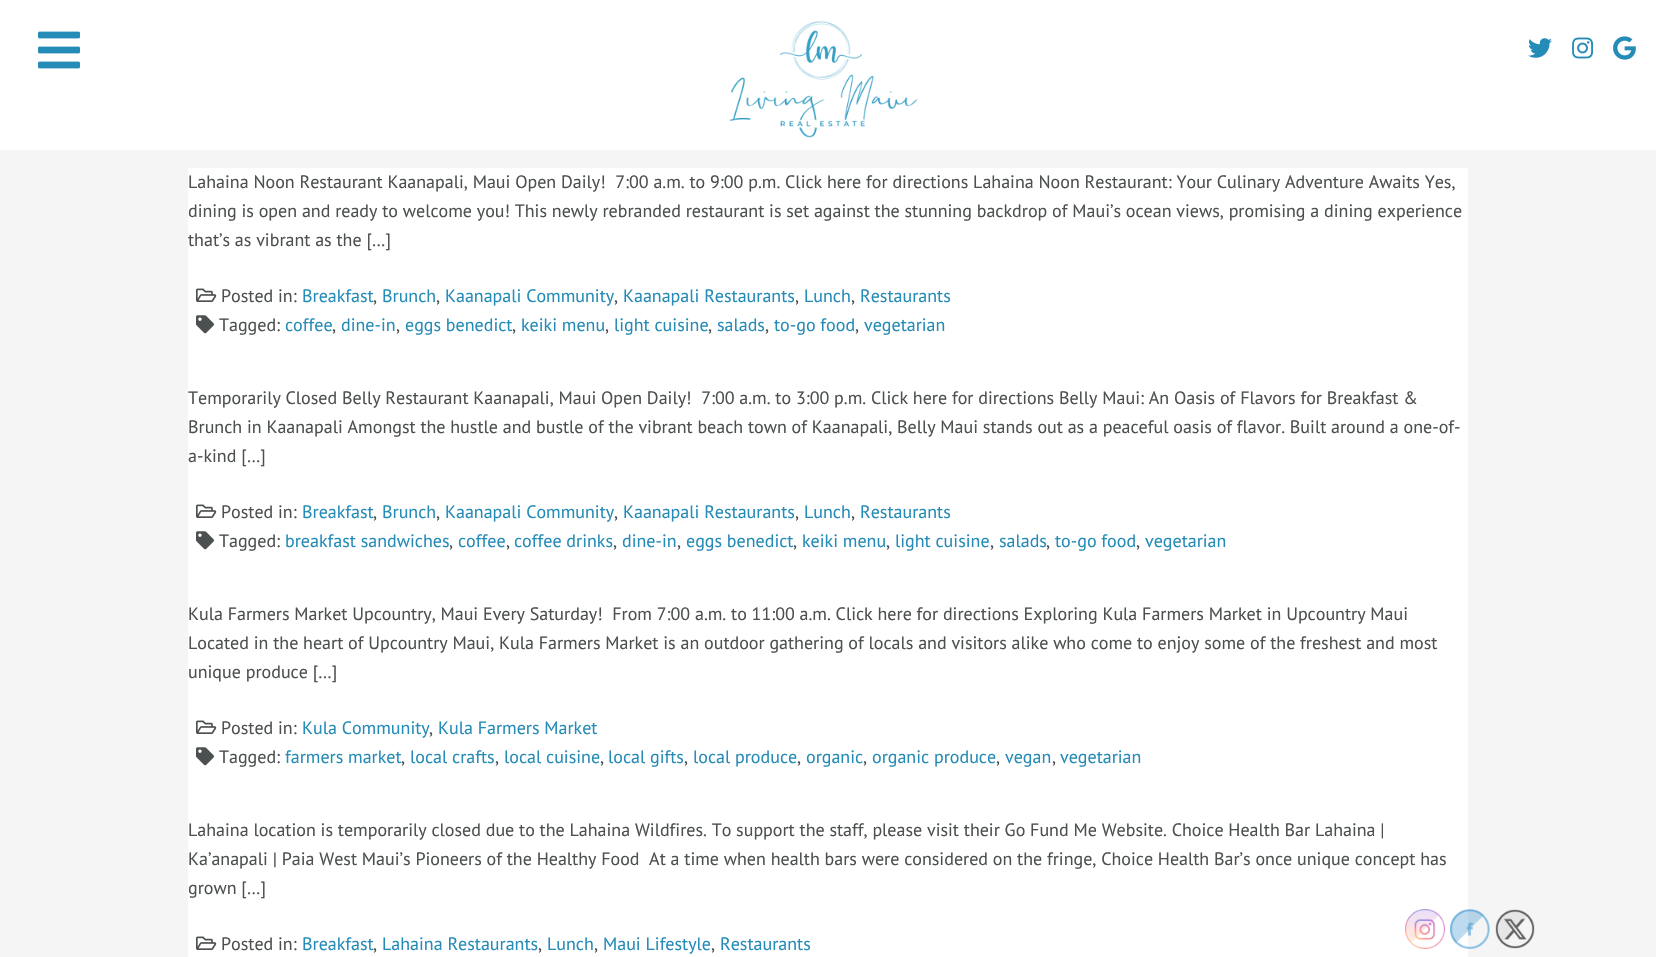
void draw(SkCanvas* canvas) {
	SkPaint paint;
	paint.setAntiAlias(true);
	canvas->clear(0xffffffff);
	canvas->drawImageRect(SkImages::DeferredFromEncodedData(SkData::MakeFromFileName("img1.png")), SkRect::MakeXYWH(38, 31, 42, 38), SkSamplingOptions());
	canvas->drawImageRect(SkImages::DeferredFromEncodedData(SkData::MakeFromFileName("img2.png")), SkRect::MakeXYWH(729, 21, 189, 117), SkSamplingOptions());
	canvas->drawImageRect(SkImages::DeferredFromEncodedData(SkData::MakeFromFileName("img3.png")), SkRect::MakeXYWH(1528, 38, 24, 20), SkSamplingOptions());
	canvas->drawImageRect(SkImages::DeferredFromEncodedData(SkData::MakeFromFileName("img4.png")), SkRect::MakeXYWH(1572, 37, 22, 22), SkSamplingOptions());
	canvas->drawImageRect(SkImages::DeferredFromEncodedData(SkData::MakeFromFileName("img5.png")), SkRect::MakeXYWH(1613, 36, 23, 24), SkSamplingOptions());
	paint.setColor(0xfff5f5f5);
	canvas->drawRect(SkRect::MakeXYWH(0, 150, 1656, 807), paint);
	paint.setColor(0xffffffff);
	canvas->drawRect(SkRect::MakeXYWH(188, 168, 1280, 789), paint);
	SkFont f1(fontMgr->matchFamilyStyle("PT Sans", SkFontStyle::Normal()), 18);
	f1.setSubpixel(true);
	paint.setColor(0xff4c5051);
	canvas->drawString("Lahaina Noon Restaurant Kaanapali, Maui Open Daily!  7:00 a.m. to 9:00 p.m. Click here for directions Lahaina Noon Restaurant: Your Culinary Adventure Awaits Yes,", 188, 188, f1, paint);
	canvas->drawString("dining is open and ready to welcome you! This newly rebranded restaurant is set against the stunning backdrop of Maui’s ocean views, promising a dining experience", 188, 217, f1, paint);
	canvas->drawString("that’s as vibrant as the […]", 188, 246, f1, paint);
	canvas->drawImageRect(SkImages::DeferredFromEncodedData(SkData::MakeFromFileName("img6.png")), SkRect::MakeXYWH(196, 288, 21, 14), SkSamplingOptions());
	canvas->drawString("Posted in:", 221, 302, f1, paint);
	paint.setColor(0xff258bb7);
	canvas->drawString("Breakfast", 302, 302, f1, paint);
	paint.setColor(0xff4c5051);
	canvas->drawString(",", 373, 302, f1, paint);
	paint.setColor(0xff258bb7);
	canvas->drawString("Brunch", 382, 302, f1, paint);
	paint.setColor(0xff4c5051);
	canvas->drawString(",", 436, 302, f1, paint);
	paint.setColor(0xff258bb7);
	canvas->drawString("Kaanapali Community", 445, 302, f1, paint);
	paint.setColor(0xff4c5051);
	canvas->drawString(",", 614, 302, f1, paint);
	paint.setColor(0xff258bb7);
	canvas->drawString("Kaanapali Restaurants", 623, 302, f1, paint);
	paint.setColor(0xff4c5051);
	canvas->drawString(",", 795, 302, f1, paint);
	paint.setColor(0xff258bb7);
	canvas->drawString("Lunch", 804, 302, f1, paint);
	paint.setColor(0xff4c5051);
	canvas->drawString(",", 851, 302, f1, paint);
	paint.setColor(0xff258bb7);
	canvas->drawString("Restaurants", 860, 302, f1, paint);
	canvas->drawImageRect(SkImages::DeferredFromEncodedData(SkData::MakeFromFileName("img7.png")), SkRect::MakeXYWH(196, 315, 18, 19), SkSamplingOptions());
	paint.setColor(0xff4c5051);
	canvas->drawString("Tagged:", 219, 331, f1, paint);
	paint.setColor(0xff258bb7);
	canvas->drawString("coffee", 285, 331, f1, paint);
	paint.setColor(0xff4c5051);
	canvas->drawString(",", 332, 331, f1, paint);
	paint.setColor(0xff258bb7);
	canvas->drawString("dine-in", 341, 331, f1, paint);
	paint.setColor(0xff4c5051);
	canvas->drawString(",", 396, 331, f1, paint);
	paint.setColor(0xff258bb7);
	canvas->drawString("eggs benedict", 405, 331, f1, paint);
	paint.setColor(0xff4c5051);
	canvas->drawString(",", 512, 331, f1, paint);
	paint.setColor(0xff258bb7);
	canvas->drawString("keiki menu", 521, 331, f1, paint);
	paint.setColor(0xff4c5051);
	canvas->drawString(",", 605, 331, f1, paint);
	paint.setColor(0xff258bb7);
	canvas->drawString("light cuisine", 614, 331, f1, paint);
	paint.setColor(0xff4c5051);
	canvas->drawString(",", 708, 331, f1, paint);
	paint.setColor(0xff258bb7);
	canvas->drawString("salads", 717, 331, f1, paint);
	paint.setColor(0xff4c5051);
	canvas->drawString(",", 765, 331, f1, paint);
	paint.setColor(0xff258bb7);
	canvas->drawString("to-go food", 774, 331, f1, paint);
	paint.setColor(0xff4c5051);
	canvas->drawString(",", 855, 331, f1, paint);
	paint.setColor(0xff258bb7);
	canvas->drawString("vegetarian", 864, 331, f1, paint);
	paint.setColor(0xff4c5051);
	canvas->drawString("Temporarily Closed Belly Restaurant Kaanapali, Maui Open Daily!  7:00 a.m. to 3:00 p.m. Click here for directions Belly Maui: An Oasis of Flavors for Breakfast &", 188, 404, f1, paint);
	canvas->drawString("Brunch in Kaanapali Amongst the hustle and bustle of the vibrant beach town of Kaanapali, Belly Maui stands out as a peaceful oasis of flavor. Built around a one-of-", 188, 433, f1, paint);
	canvas->drawString("a-kind […]", 188, 462, f1, paint);
	canvas->drawImageRect(SkImages::DeferredFromEncodedData(SkData::MakeFromFileName("img6.png")), SkRect::MakeXYWH(196, 504, 21, 14), SkSamplingOptions());
	canvas->drawString("Posted in:", 221, 518, f1, paint);
	paint.setColor(0xff258bb7);
	canvas->drawString("Breakfast", 302, 518, f1, paint);
	paint.setColor(0xff4c5051);
	canvas->drawString(",", 373, 518, f1, paint);
	paint.setColor(0xff258bb7);
	canvas->drawString("Brunch", 382, 518, f1, paint);
	paint.setColor(0xff4c5051);
	canvas->drawString(",", 436, 518, f1, paint);
	paint.setColor(0xff258bb7);
	canvas->drawString("Kaanapali Community", 445, 518, f1, paint);
	paint.setColor(0xff4c5051);
	canvas->drawString(",", 614, 518, f1, paint);
	paint.setColor(0xff258bb7);
	canvas->drawString("Kaanapali Restaurants", 623, 518, f1, paint);
	paint.setColor(0xff4c5051);
	canvas->drawString(",", 795, 518, f1, paint);
	paint.setColor(0xff258bb7);
	canvas->drawString("Lunch", 804, 518, f1, paint);
	paint.setColor(0xff4c5051);
	canvas->drawString(",", 851, 518, f1, paint);
	paint.setColor(0xff258bb7);
	canvas->drawString("Restaurants", 860, 518, f1, paint);
	canvas->drawImageRect(SkImages::DeferredFromEncodedData(SkData::MakeFromFileName("img7.png")), SkRect::MakeXYWH(196, 531, 18, 19), SkSamplingOptions());
	paint.setColor(0xff4c5051);
	canvas->drawString("Tagged:", 219, 547, f1, paint);
	paint.setColor(0xff258bb7);
	canvas->drawString("breakfast sandwiches", 285, 547, f1, paint);
	paint.setColor(0xff4c5051);
	canvas->drawString(",", 449, 547, f1, paint);
	paint.setColor(0xff258bb7);
	canvas->drawString("coffee", 458, 547, f1, paint);
	paint.setColor(0xff4c5051);
	canvas->drawString(",", 506, 547, f1, paint);
	paint.setColor(0xff258bb7);
	canvas->drawString("coffee drinks", 514, 547, f1, paint);
	paint.setColor(0xff4c5051);
	canvas->drawString(",", 613, 547, f1, paint);
	paint.setColor(0xff258bb7);
	canvas->drawString("dine-in", 622, 547, f1, paint);
	paint.setColor(0xff4c5051);
	canvas->drawString(",", 677, 547, f1, paint);
	paint.setColor(0xff258bb7);
	canvas->drawString("eggs benedict", 686, 547, f1, paint);
	paint.setColor(0xff4c5051);
	canvas->drawString(",", 793, 547, f1, paint);
	paint.setColor(0xff258bb7);
	canvas->drawString("keiki menu", 802, 547, f1, paint);
	paint.setColor(0xff4c5051);
	canvas->drawString(",", 886, 547, f1, paint);
	paint.setColor(0xff258bb7);
	canvas->drawString("light cuisine", 895, 547, f1, paint);
	paint.setColor(0xff4c5051);
	canvas->drawString(",", 990, 547, f1, paint);
	paint.setColor(0xff258bb7);
	canvas->drawString("salads", 999, 547, f1, paint);
	paint.setColor(0xff4c5051);
	canvas->drawString(",", 1046, 547, f1, paint);
	paint.setColor(0xff258bb7);
	canvas->drawString("to-go food", 1055, 547, f1, paint);
	paint.setColor(0xff4c5051);
	canvas->drawString(",", 1136, 547, f1, paint);
	paint.setColor(0xff258bb7);
	canvas->drawString("vegetarian", 1145, 547, f1, paint);
	paint.setColor(0xff4c5051);
	canvas->drawString("Kula Farmers Market Upcountry, Maui Every Saturday!  From 7:00 a.m. to 11:00 a.m. Click here for directions Exploring Kula Farmers Market in Upcountry Maui", 188, 620, f1, paint);
	canvas->drawString("Located in the heart of Upcountry Maui, Kula Farmers Market is an outdoor gathering of locals and visitors alike who come to enjoy some of the freshest and most", 188, 649, f1, paint);
	canvas->drawString("unique produce […]", 188, 678, f1, paint);
	canvas->drawImageRect(SkImages::DeferredFromEncodedData(SkData::MakeFromFileName("img6.png")), SkRect::MakeXYWH(196, 720, 21, 14), SkSamplingOptions());
	canvas->drawString("Posted in:", 221, 734, f1, paint);
	paint.setColor(0xff258bb7);
	canvas->drawString("Kula Community", 302, 734, f1, paint);
	paint.setColor(0xff4c5051);
	canvas->drawString(",", 429, 734, f1, paint);
	paint.setColor(0xff258bb7);
	canvas->drawString("Kula Farmers Market", 438, 734, f1, paint);
	canvas->drawImageRect(SkImages::DeferredFromEncodedData(SkData::MakeFromFileName("img7.png")), SkRect::MakeXYWH(196, 747, 18, 19), SkSamplingOptions());
	paint.setColor(0xff4c5051);
	canvas->drawString("Tagged:", 219, 763, f1, paint);
	paint.setColor(0xff258bb7);
	canvas->drawString("farmers market", 285, 763, f1, paint);
	paint.setColor(0xff4c5051);
	canvas->drawString(",", 401, 763, f1, paint);
	paint.setColor(0xff258bb7);
	canvas->drawString("local crafts", 410, 763, f1, paint);
	paint.setColor(0xff4c5051);
	canvas->drawString(",", 495, 763, f1, paint);
	paint.setColor(0xff258bb7);
	canvas->drawString("local cuisine", 504, 763, f1, paint);
	paint.setColor(0xff4c5051);
	canvas->drawString(",", 600, 763, f1, paint);
	paint.setColor(0xff258bb7);
	canvas->drawString("local gifts", 608, 763, f1, paint);
	paint.setColor(0xff4c5051);
	canvas->drawString(",", 684, 763, f1, paint);
	paint.setColor(0xff258bb7);
	canvas->drawString("local produce", 693, 763, f1, paint);
	paint.setColor(0xff4c5051);
	canvas->drawString(",", 797, 763, f1, paint);
	paint.setColor(0xff258bb7);
	canvas->drawString("organic", 806, 763, f1, paint);
	paint.setColor(0xff4c5051);
	canvas->drawString(",", 863, 763, f1, paint);
	paint.setColor(0xff258bb7);
	canvas->drawString("organic produce", 872, 763, f1, paint);
	paint.setColor(0xff4c5051);
	canvas->drawString(",", 996, 763, f1, paint);
	paint.setColor(0xff258bb7);
	canvas->drawString("vegan", 1005, 763, f1, paint);
	paint.setColor(0xff4c5051);
	canvas->drawString(",", 1052, 763, f1, paint);
	paint.setColor(0xff258bb7);
	canvas->drawString("vegetarian", 1060, 763, f1, paint);
	paint.setColor(0xff4c5051);
	canvas->drawString("Lahaina location is temporarily closed due to the Lahaina Wildfires. To support the staff, please visit their Go Fund Me Website. Choice Health Bar Lahaina |", 188, 836, f1, paint);
	canvas->drawString("Ka’anapali | Paia West Maui’s Pioneers of the Healthy Food  At a time when health bars were considered on the fringe, Choice Health Bar’s once unique concept has", 188, 865, f1, paint);
	canvas->drawString("grown […]", 188, 894, f1, paint);
	canvas->drawImageRect(SkImages::DeferredFromEncodedData(SkData::MakeFromFileName("img6.png")), SkRect::MakeXYWH(196, 936, 21, 14), SkSamplingOptions());
	canvas->drawString("Posted in:", 221, 950, f1, paint);
	paint.setColor(0xff258bb7);
	canvas->drawString("Breakfast", 302, 950, f1, paint);
	paint.setColor(0xff4c5051);
	canvas->drawString(",", 373, 950, f1, paint);
	paint.setColor(0xff258bb7);
	canvas->drawString("Lahaina Restaurants", 382, 950, f1, paint);
	paint.setColor(0xff4c5051);
	canvas->drawString(",", 538, 950, f1, paint);
	paint.setColor(0xff258bb7);
	canvas->drawString("Lunch", 547, 950, f1, paint);
	paint.setColor(0xff4c5051);
	canvas->drawString(",", 594, 950, f1, paint);
	paint.setColor(0xff258bb7);
	canvas->drawString("Maui Lifestyle", 603, 950, f1, paint);
	paint.setColor(0xff4c5051);
	canvas->drawString(",", 711, 950, f1, paint);
	paint.setColor(0xff258bb7);
	canvas->drawString("Restaurants", 720, 950, f1, paint);
	canvas->drawImageRect(SkImages::DeferredFromEncodedData(SkData::MakeFromFileName("img8.png")), SkRect::MakeXYWH(1405, 909, 40, 40), SkSamplingOptions());
	canvas->drawImageRect(SkImages::DeferredFromEncodedData(SkData::MakeFromFileName("img9.png")), SkRect::MakeXYWH(1450, 909, 40, 40), SkSamplingOptions());
	canvas->drawImageRect(SkImages::DeferredFromEncodedData(SkData::MakeFromFileName("img10.png")), SkRect::MakeXYWH(1495, 909, 40, 40), SkSamplingOptions());
}
